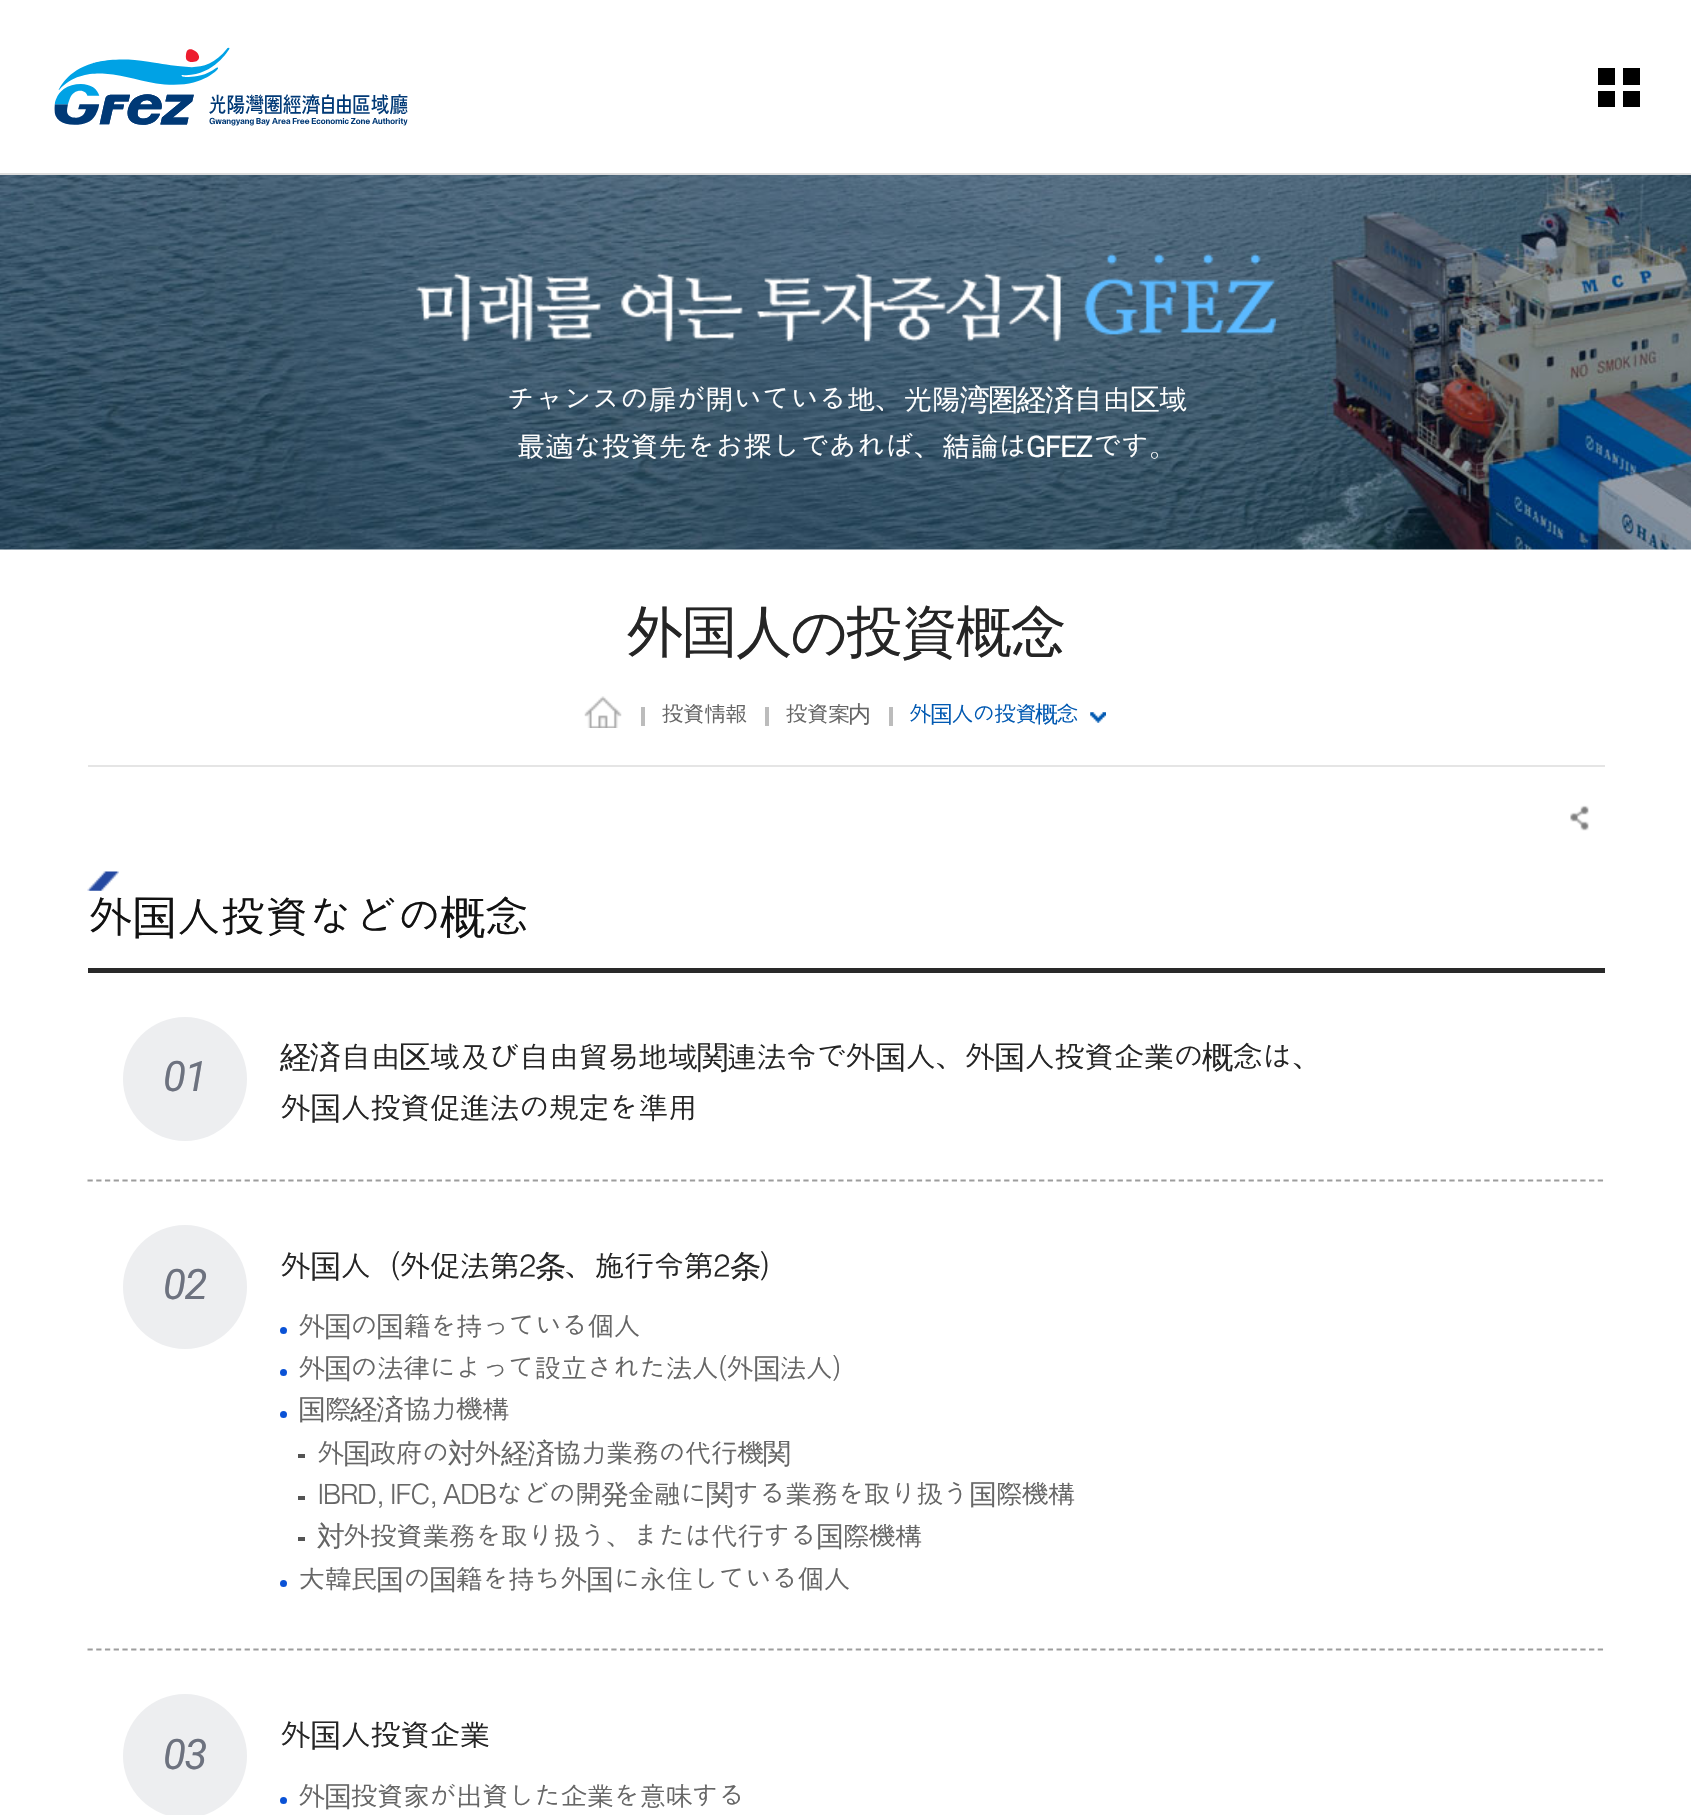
void draw(SkCanvas* canvas) {
	SkPaint paint;
	paint.setAntiAlias(true);
	auto spacedText = [&](const char* s, float x, float y, const SkFont& font, const SkPaint& ink, float letter, float word) {
		std::vector<SkGlyphID> glyphs(font.countText(s, strlen(s), SkTextEncoding::kUTF8));
		std::vector<float> xs(glyphs.size());
		font.textToGlyphs(s, strlen(s), SkTextEncoding::kUTF8, glyphs);
		font.getXPos(glyphs, xs, x);
		float extra = 0;
		for (size_t i = 0; i < glyphs.size(); i++) {
			xs[i] += extra;
			extra += letter + word * (glyphs[i] == font.unicharToGlyph(' '));
		}
		canvas->drawTextBlob(SkTextBlob::MakeFromPosHGlyphs(glyphs, xs, y, font), 0, 0, ink);
	};
	auto svgPath = [&](const char* data, bool evenOdd = false) {
		SkPath result = *SkParsePath::FromSVGString(data);
		if (evenOdd) result.setFillType(SkPathFillType::kEvenOdd);
		return result;
	};
	canvas->clear(0xffffffff);
	paint.setColor(0xffdddddd);
	canvas->drawRect(SkRect::MakeXYWH(0, 173, 1691, 2), paint);
	canvas->drawImageRect(SkImages::DeferredFromEncodedData(SkData::MakeFromFileName("img1.png")), SkRect::MakeXYWH(54, 47, 354, 79), SkSamplingOptions());
	paint.setColor(0xff000000);
	canvas->drawRect(SkRect::MakeXYWH(1598, 68, 17, 17), paint);
	canvas->drawRect(SkRect::MakeXYWH(1598, 91, 17, 16), paint);
	canvas->drawRect(SkRect::MakeXYWH(1623, 68, 17, 17), paint);
	canvas->drawRect(SkRect::MakeXYWH(1623, 91, 17, 16), paint);
	canvas->drawImageRect(SkImages::DeferredFromEncodedData(SkData::MakeFromFileName("img2.png")), SkRect::MakeXYWH(0, 175, 1691, 375), SkSamplingOptions());
	canvas->drawImageRect(SkImages::DeferredFromEncodedData(SkData::MakeFromFileName("img3.png")), SkRect::MakeXYWH(416, 253, 860, 89), SkSamplingOptions());
	SkFont f1(fontMgr->matchFamilyStyle("Dotum", SkFontStyle::Normal()), 29.75);
	f1.setSubpixel(true);
	paint.setColor(0xffffffff);
	spacedText("チャンスの扉が開いている地、光陽", 506, 410, f1, paint, -1.4, 0);
	SkFont f2(fontMgr->matchFamilyStyle("WenQuanYi Zen Hei", SkFontStyle(500, SkFontStyle::kNormal_Width, SkFontStyle::kUpright_Slant)), 29.75);
	f2.setSubpixel(true);
	spacedText("湾圏経済", 960, 410, f2, paint, -1.4, 0);
	spacedText("自由", 1073, 410, f1, paint, -1.4, 0);
	spacedText("区", 1130, 410, f2, paint, -1.4, 0);
	spacedText("域", 1158, 410, f1, paint, -1.4, 0);
	spacedText("最適な投資先をお探しであれば、結論は", 516, 457, f1, paint, -1.4, 0);
	SkFont f3(fontMgr->matchFamilyStyle("Roboto", SkFontStyle::Normal()), 29.75);
	f3.setSubpixel(true);
	spacedText("GFEZ", 1026, 457, f3, paint, -1.4, 0);
	spacedText("です。", 1092, 457, f1, paint, -1.4, 0);
	paint.setColor(0xffe5e5e5);
	canvas->drawRect(SkRect::MakeXYWH(88, 765, 1517, 2), paint);
	SkFont f4(fontMgr->matchFamilyStyle("WenQuanYi Zen Hei", SkFontStyle(500, SkFontStyle::kNormal_Width, SkFontStyle::kUpright_Slant)), 56);
	f4.setSubpixel(true);
	paint.setColor(0xff252525);
	spacedText("外国人の投資概念", 627, 651, f4, paint, -1.4, 0);
	canvas->drawImageRect(SkImages::DeferredFromEncodedData(SkData::MakeFromFileName("img4.png")), SkRect::MakeXYWH(584, 696, 38, 32), SkSamplingOptions());
	paint.setColor(0xffbcbcbc);
	canvas->drawRect(SkRect::MakeXYWH(641, 707, 4, 19), paint);
	SkFont f5(fontMgr->matchFamilyStyle("Dotum", SkFontStyle::Normal()), 23);
	f5.setSubpixel(true);
	paint.setColor(0xff666666);
	spacedText("投資情報", 661, 722, f5, paint, -1.75, 0);
	paint.setColor(0xffbcbcbc);
	canvas->drawRect(SkRect::MakeXYWH(765, 707, 4, 19), paint);
	paint.setColor(0xff666666);
	spacedText("投資案", 785, 722, f5, paint, -1.75, 0);
	SkFont f6(fontMgr->matchFamilyStyle("WenQuanYi Zen Hei", SkFontStyle(500, SkFontStyle::kNormal_Width, SkFontStyle::kUpright_Slant)), 23);
	f6.setSubpixel(true);
	spacedText("内", 848, 722, f6, paint, -1.75, 0);
	paint.setColor(0xffbcbcbc);
	canvas->drawRect(SkRect::MakeXYWH(889, 707, 4, 19), paint);
	paint.setColor(0xff0159b2);
	spacedText("外", 909, 722, f5, paint, -1.75, 0);
	spacedText("国", 930, 722, f6, paint, -1.75, 0);
	spacedText("人の投資", 951, 722, f5, paint, -1.75, 0);
	spacedText("概", 1035, 722, f6, paint, -1.75, 0);
	spacedText("念", 1056, 722, f5, paint, -1.75, 0);
	canvas->drawImageRect(SkImages::DeferredFromEncodedData(SkData::MakeFromFileName("img5.png")), SkRect::MakeXYWH(1090, 712, 16, 11), SkSamplingOptions());
	canvas->drawImageRect(SkImages::DeferredFromEncodedData(SkData::MakeFromFileName("img6.png")), SkRect::MakeXYWH(1570, 805, 19, 26), SkSamplingOptions());
	canvas->drawImageRect(SkImages::DeferredFromEncodedData(SkData::MakeFromFileName("img7.png")), SkRect::MakeXYWH(87, 871, 32, 20), SkSamplingOptions());
	SkFont f7(fontMgr->matchFamilyStyle("Dotum", SkFontStyle::Normal()), 45.5);
	f7.setSubpixel(true);
	paint.setColor(0xff121212);
	spacedText("外", 88, 933, f7, paint, -1.4, 0);
	SkFont f8(fontMgr->matchFamilyStyle("WenQuanYi Zen Hei", SkFontStyle(500, SkFontStyle::kNormal_Width, SkFontStyle::kUpright_Slant)), 45.5);
	f8.setSubpixel(true);
	spacedText("国", 132, 933, f8, paint, -1.4, 0);
	spacedText("人投資などの", 176, 933, f7, paint, -1.4, 0);
	spacedText("概", 440, 933, f8, paint, -1.4, 0);
	spacedText("念", 484, 933, f7, paint, -1.4, 0);
	paint.setColor(0xff292929);
	canvas->drawRect(SkRect::MakeXYWH(88, 968, 1517, 5), paint);
	paint.setColor(0xffedeef0);
	canvas->drawCircle(185, 1079, 62, paint);
	SkFont f9(fontMgr->matchFamilyStyle("Roboto", SkFontStyle::Italic()), 42);
	f9.setSubpixel(true);
	paint.setColor(0xff6d727f);
	spacedText("01", 163, 1091, f9, paint, -1.4, 0);
	SkFont f10(fontMgr->matchFamilyStyle("WenQuanYi Zen Hei", SkFontStyle(500, SkFontStyle::kNormal_Width, SkFontStyle::kUpright_Slant)), 31.5);
	f10.setSubpixel(true);
	paint.setColor(0xff252525);
	spacedText("経済", 280, 1068, f10, paint, -1.75, 0);
	SkFont f11(fontMgr->matchFamilyStyle("Dotum", SkFontStyle::Normal()), 31.5);
	f11.setSubpixel(true);
	spacedText("自由", 340, 1068, f11, paint, -1.75, 0);
	spacedText("区", 399, 1068, f10, paint, -1.75, 0);
	spacedText("域及び自由貿易地域", 429, 1068, f11, paint, -1.75, 0);
	spacedText("関", 697, 1068, f10, paint, -1.75, 0);
	spacedText("連法令で外", 726, 1068, f11, paint, -1.75, 0);
	spacedText("国", 875, 1068, f10, paint, -1.75, 0);
	spacedText("人、外", 905, 1068, f11, paint, -1.75, 0);
	spacedText("国", 994, 1068, f10, paint, -1.75, 0);
	spacedText("人投資企業の", 1024, 1068, f11, paint, -1.75, 0);
	spacedText("概", 1202, 1068, f10, paint, -1.75, 0);
	spacedText("念は、", 1232, 1068, f11, paint, -1.75, 0);
	spacedText("外", 280, 1119, f11, paint, -1.75, 0);
	spacedText("国", 310, 1119, f10, paint, -1.75, 0);
	spacedText("人投資促進法の規定を準用", 340, 1119, f11, paint, -1.75, 0);
	paint.setStroke(true);
	paint.setStrokeWidth(1.8);
	paint.setColor(0xff9d9d9d);
	paint.setPathEffect(SkDashPathEffect::Make({{5.25f, 3.48f}}, 0));
	canvas->drawPath(svgPath("M87.5 1180.5H1605"), paint);
	paint.setPathEffect(nullptr);
	paint.setStroke(false);
	paint.setColor(0xffedeef0);
	canvas->drawCircle(185, 1287, 62, paint);
	paint.setColor(0xff6d727f);
	spacedText("02", 163, 1299, f9, paint, -1.4, 0);
	paint.setColor(0xff252525);
	spacedText("外", 280, 1277, f11, paint, -1.75, 0);
	spacedText("国", 310, 1277, f10, paint, -1.75, 0);
	spacedText("人（外促法第2", 340, 1277, f11, paint, -1.75, 0);
	spacedText("条", 535, 1277, f10, paint, -1.75, 0);
	spacedText("、施行令第2", 564, 1277, f11, paint, -1.75, 0);
	spacedText("条", 730, 1277, f10, paint, -1.75, 0);
	spacedText("）", 759, 1277, f11, paint, -1.75, 0);
	paint.setColor(0xff0a52d6);
	canvas->drawCircle(283.5, 1330.5, 3.5, paint);
	SkFont f12(fontMgr->matchFamilyStyle("Dotum", SkFontStyle::Normal()), 28);
	f12.setSubpixel(true);
	paint.setColor(0xff666666);
	spacedText("外", 298, 1336, f12, paint, -1.75, 0);
	SkFont f13(fontMgr->matchFamilyStyle("WenQuanYi Zen Hei", SkFontStyle(500, SkFontStyle::kNormal_Width, SkFontStyle::kUpright_Slant)), 28);
	f13.setSubpixel(true);
	spacedText("国", 324, 1336, f13, paint, -1.75, 0);
	spacedText("の", 350, 1336, f12, paint, -1.75, 0);
	spacedText("国", 376, 1336, f13, paint, -1.75, 0);
	spacedText("籍を持っている個人", 403, 1336, f12, paint, -1.75, 0);
	paint.setColor(0xff0a52d6);
	canvas->drawCircle(283.5, 1372.5, 3.5, paint);
	paint.setColor(0xff666666);
	spacedText("外", 298, 1378, f12, paint, -1.75, 0);
	spacedText("国", 324, 1378, f13, paint, -1.75, 0);
	spacedText("の法律によって設立された法人(外", 350, 1378, f12, paint, -1.75, 0);
	spacedText("国", 753, 1378, f13, paint, -1.75, 0);
	spacedText("法人)", 779, 1378, f12, paint, -1.75, 0);
	paint.setColor(0xff0a52d6);
	canvas->drawCircle(283.5, 1414.5, 3.5, paint);
	paint.setColor(0xff666666);
	spacedText("国", 298, 1419, f13, paint, -1.75, 0);
	spacedText("際", 324, 1419, f12, paint, -1.75, 0);
	spacedText("経済", 350, 1419, f13, paint, -1.75, 0);
	spacedText("協力機構", 403, 1419, f12, paint, -1.75, 0);
	paint.setColor(0xff545454);
	canvas->drawRect(SkRect::MakeXYWH(298, 1454, 7, 4), paint);
	paint.setColor(0xff666666);
	spacedText("外", 317, 1463, f12, paint, -1.75, 0);
	spacedText("国", 343, 1463, f13, paint, -1.75, 0);
	spacedText("政府の", 369, 1463, f12, paint, -1.75, 0);
	spacedText("対", 448, 1463, f13, paint, -1.75, 0);
	spacedText("外", 474, 1463, f12, paint, -1.75, 0);
	spacedText("経済", 501, 1463, f13, paint, -1.75, 0);
	spacedText("協力業務の代行機", 553, 1463, f12, paint, -1.75, 0);
	spacedText("関", 763, 1463, f13, paint, -1.75, 0);
	paint.setColor(0xff545454);
	canvas->drawRect(SkRect::MakeXYWH(298, 1496, 7, 4), paint);
	paint.setColor(0xff666666);
	spacedText("IBRD, IFC, ADBなどの開", 317, 1504, f12, paint, -1.75, -2);
	spacedText("発", 601, 1504, f13, paint, -1.75, 0);
	spacedText("金融に", 627, 1504, f12, paint, -1.75, 0);
	spacedText("関", 706, 1504, f13, paint, -1.75, 0);
	spacedText("する業務を取り扱う", 732, 1504, f12, paint, -1.75, 0);
	spacedText("国", 969, 1504, f13, paint, -1.75, 0);
	spacedText("際機構", 995, 1504, f12, paint, -1.75, 0);
	paint.setColor(0xff545454);
	canvas->drawRect(SkRect::MakeXYWH(298, 1537, 7, 4), paint);
	paint.setColor(0xff666666);
	spacedText("対", 317, 1546, f13, paint, -1.75, 0);
	spacedText("外投資業務を取り扱う、または代行する", 343, 1546, f12, paint, -1.75, 0);
	spacedText("国", 816, 1546, f13, paint, -1.75, 0);
	spacedText("際機構", 842, 1546, f12, paint, -1.75, 0);
	paint.setColor(0xff0a52d6);
	canvas->drawCircle(283.5, 1583.5, 3.5, paint);
	paint.setColor(0xff666666);
	spacedText("大韓民", 298, 1589, f12, paint, -1.75, 0);
	spacedText("国", 376, 1589, f13, paint, -1.75, 0);
	spacedText("の", 403, 1589, f12, paint, -1.75, 0);
	spacedText("国", 429, 1589, f13, paint, -1.75, 0);
	spacedText("籍を持ち外", 455, 1589, f12, paint, -1.75, 0);
	spacedText("国", 586, 1589, f13, paint, -1.75, 0);
	spacedText("に永住している個人", 613, 1589, f12, paint, -1.75, 0);
	paint.setStroke(true);
	paint.setColor(0xff9d9d9d);
	paint.setPathEffect(SkDashPathEffect::Make({{5.25f, 3.48f}}, 0));
	canvas->drawPath(svgPath("M87.5 1649.5H1605"), paint);
	paint.setPathEffect(nullptr);
	paint.setStroke(false);
	paint.setColor(0xffedeef0);
	canvas->drawCircle(185, 1756, 62, paint);
	paint.setColor(0xff6d727f);
	spacedText("03", 163, 1769, f9, paint, -1.4, 0);
	paint.setColor(0xff252525);
	spacedText("外", 280, 1746, f11, paint, -1.75, 0);
	spacedText("国", 310, 1746, f10, paint, -1.75, 0);
	spacedText("人投資企業", 340, 1746, f11, paint, -1.75, 0);
	paint.setColor(0xff0a52d6);
	canvas->drawCircle(283.5, 1800.5, 3.5, paint);
	paint.setColor(0xff666666);
	spacedText("外", 298, 1806, f12, paint, -1.75, 0);
	spacedText("国", 324, 1806, f13, paint, -1.75, 0);
	spacedText("投資家が出資した企業を意味する", 350, 1806, f12, paint, -1.75, 0);
}
